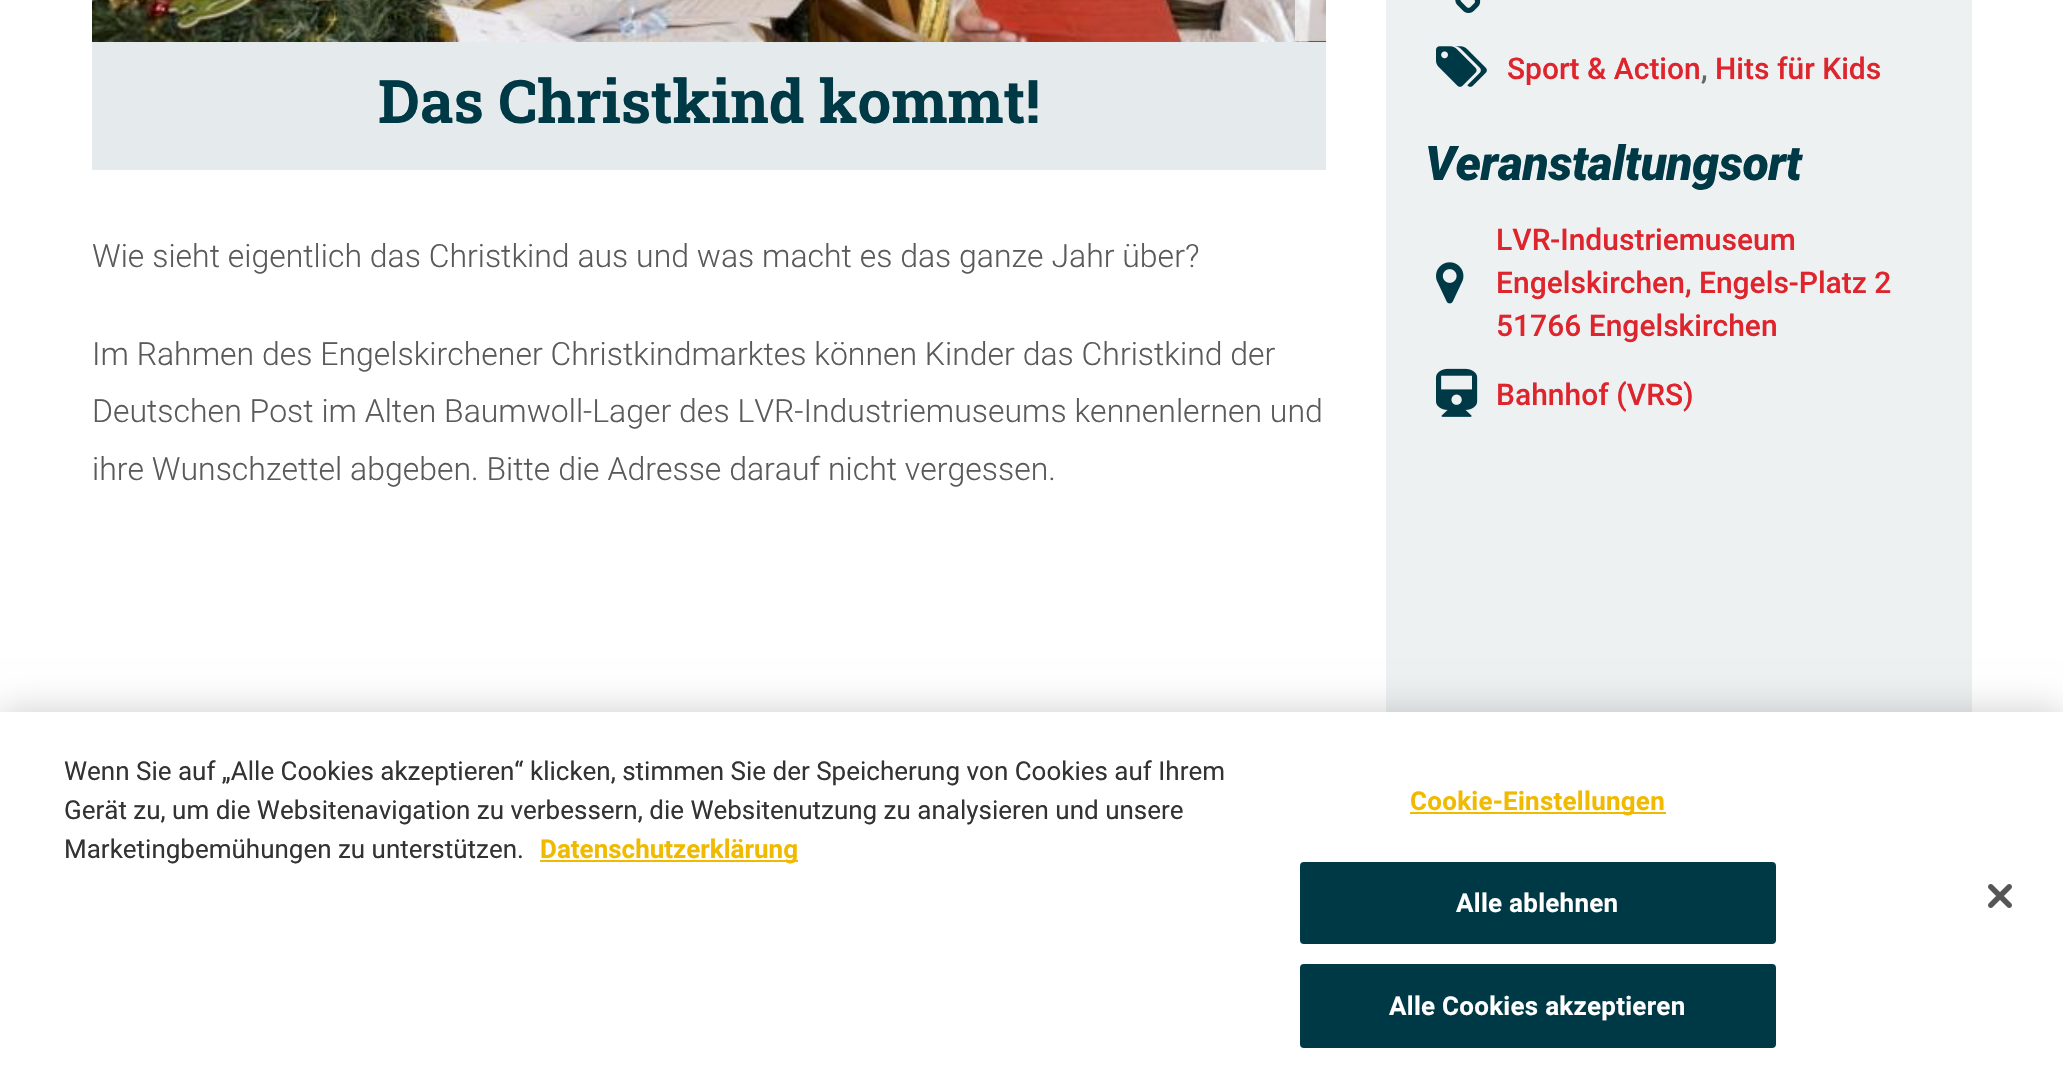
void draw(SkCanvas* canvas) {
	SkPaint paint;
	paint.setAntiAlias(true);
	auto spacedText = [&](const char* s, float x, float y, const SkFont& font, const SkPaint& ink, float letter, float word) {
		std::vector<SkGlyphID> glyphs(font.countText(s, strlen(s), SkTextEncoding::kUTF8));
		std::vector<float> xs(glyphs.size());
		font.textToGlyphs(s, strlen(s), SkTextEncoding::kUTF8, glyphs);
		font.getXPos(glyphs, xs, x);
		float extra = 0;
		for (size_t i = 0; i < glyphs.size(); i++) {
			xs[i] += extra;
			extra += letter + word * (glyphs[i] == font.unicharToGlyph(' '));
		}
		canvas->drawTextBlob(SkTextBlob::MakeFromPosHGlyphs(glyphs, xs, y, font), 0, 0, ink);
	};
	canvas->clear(0xffffffff);
	canvas->drawImageRect(SkImages::DeferredFromEncodedData(SkData::MakeFromFileName("img1.png")), SkRect::MakeXYWH(92, 0, 1234, 42), SkSamplingOptions());
	paint.setColor(0xa6ffffff);
	canvas->drawRect(SkRect::MakeXYWH(1295, 0, 31, 41), paint);
	paint.setColor(0xffe5ebec);
	canvas->drawRect(SkRect::MakeXYWH(92, 42, 1234, 128), paint);
	SkFont f1(fontMgr->matchFamilyStyle("Roboto Slab", SkFontStyle::Bold()), 60);
	f1.setSubpixel(true);
	paint.setColor(0xff003946);
	canvas->drawString("Das Christkind kommt!", 378, 123, f1, paint);
	SkFont f2(fontMgr->matchFamilyStyle("Roboto", SkFontStyle(300, SkFontStyle::kNormal_Width, SkFontStyle::kUpright_Slant)), 32);
	f2.setSubpixel(true);
	paint.setColor(0xff5a5a5a);
	canvas->drawString("Wie sieht eigentlich das Christkind aus und was macht es das ganze Jahr über?", 92, 267, f2, paint);
	canvas->drawString("Im Rahmen des Engelskirchener Christkindmarktes können Kinder das Christkind der", 92, 365, f2, paint);
	canvas->drawString("Deutschen Post im Alten Baumwoll-Lager des LVR-Industriemuseums kennenlernen und", 92, 422, f2, paint);
	canvas->drawString("ihre Wunschzettel abgeben. Bitte die Adresse darauf nicht vergessen.", 92, 480, f2, paint);
	paint.setColor(0xffedf1f2);
	canvas->drawRect(SkRect::MakeXYWH(1386, 0, 586, 712), paint);
	canvas->drawImageRect(SkImages::DeferredFromEncodedData(SkData::MakeFromFileName("img2.png")), SkRect::MakeXYWH(1455, 0, 26, 13), SkSamplingOptions());
	canvas->drawImageRect(SkImages::DeferredFromEncodedData(SkData::MakeFromFileName("img3.png")), SkRect::MakeXYWH(1436, 46, 51, 41), SkSamplingOptions());
	SkFont f3(fontMgr->matchFamilyStyle("Roboto", SkFontStyle(500, SkFontStyle::kNormal_Width, SkFontStyle::kUpright_Slant)), 30);
	f3.setSubpixel(true);
	paint.setColor(0xffde252d);
	canvas->drawString("Sport & Action", 1507, 79, f3, paint);
	paint.setColor(0xff666666);
	canvas->drawString(",", 1701, 79, f3, paint);
	paint.setColor(0xffde252d);
	canvas->drawString("Hits für Kids", 1715, 79, f3, paint);
	SkFont f4(fontMgr->matchFamilyStyle("Roboto", SkFontStyle(900, SkFontStyle::kNormal_Width, SkFontStyle::kItalic_Slant)), 48);
	f4.setSubpixel(true);
	paint.setColor(0xff003946);
	spacedText("Veranstaltungsort", 1425, 180, f4, paint, -0.5, 0);
	canvas->drawImageRect(SkImages::DeferredFromEncodedData(SkData::MakeFromFileName("img4.png")), SkRect::MakeXYWH(1436, 262, 28, 42), SkSamplingOptions());
	paint.setColor(0xffde252d);
	canvas->drawString("LVR-Industriemuseum", 1496, 250, f3, paint);
	canvas->drawString("Engelskirchen, Engels-Platz 2", 1496, 293, f3, paint);
	canvas->drawString("51766 Engelskirchen", 1496, 336, f3, paint);
	canvas->drawImageRect(SkImages::DeferredFromEncodedData(SkData::MakeFromFileName("img5.png")), SkRect::MakeXYWH(1436, 368, 42, 49), SkSamplingOptions());
	canvas->drawString("Bahnhof (VRS)", 1496, 405, f3, paint);
	paint.setColor(0x33000000);
	paint.setMaskFilter(SkMaskFilter::MakeBlur(kNormal_SkBlurStyle, 18));
	canvas->drawRect(SkRect::MakeXYWH(0, 712, 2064, 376), paint);
	paint.setMaskFilter(nullptr);
	paint.setColor(0xffffffff);
	canvas->drawRect(SkRect::MakeXYWH(0, 712, 2063, 375), paint);
	SkFont f5(fontMgr->matchFamilyStyle("Roboto", SkFontStyle::Normal()), 26);
	f5.setSubpixel(true);
	paint.setColor(0xff333333);
	canvas->drawString("Wenn Sie auf „Alle Cookies akzeptieren“ klicken, stimmen Sie der Speicherung von Cookies auf Ihrem", 64, 780, f5, paint);
	canvas->drawString("Gerät zu, um die Websitenavigation zu verbessern, die Websitenutzung zu analysieren und unsere", 64, 819, f5, paint);
	canvas->drawString("Marketingbemühungen zu unterstützen.", 64, 858, f5, paint);
	paint.setColor(0xfff0ba00);
	canvas->drawRect(SkRect::MakeXYWH(540, 860, 258, 2), paint);
	SkFont f6(fontMgr->matchFamilyStyle("Roboto", SkFontStyle::Bold()), 26);
	f6.setSubpixel(true);
	canvas->drawString("Datenschutzerklärung", 540, 858, f6, paint);
	canvas->drawRect(SkRect::MakeXYWH(1410, 812, 256, 2), paint);
	spacedText("Cookie-Einstellungen", 1410, 810, f6, paint, 0.25, 0);
	paint.setColor(0xff003946);
	canvas->drawRoundRect(SkRect::MakeXYWH(1301, 863, 474, 80), 3, 3, paint);
	paint.setStroke(true);
	paint.setStrokeWidth(2);
	canvas->drawRoundRect(SkRect::MakeXYWH(1301, 863, 474, 80), 3, 3, paint);
	paint.setStroke(false);
	paint.setColor(0xffffffff);
	spacedText("Alle ablehnen", 1456, 912, f6, paint, 0.25, 0);
	paint.setColor(0xff003946);
	canvas->drawRoundRect(SkRect::MakeXYWH(1301, 965, 474, 82), 3, 3, paint);
	paint.setStroke(true);
	canvas->drawRoundRect(SkRect::MakeXYWH(1301, 965, 474, 82), 3, 3, paint);
	paint.setStroke(false);
	paint.setColor(0xffffffff);
	spacedText("Alle Cookies akzeptieren", 1389, 1015, f6, paint, 0.25, 0);
	canvas->drawImageRect(SkImages::DeferredFromEncodedData(SkData::MakeFromFileName("img6.png")), SkRect::MakeXYWH(1988, 884, 24, 24), SkSamplingOptions());
}
